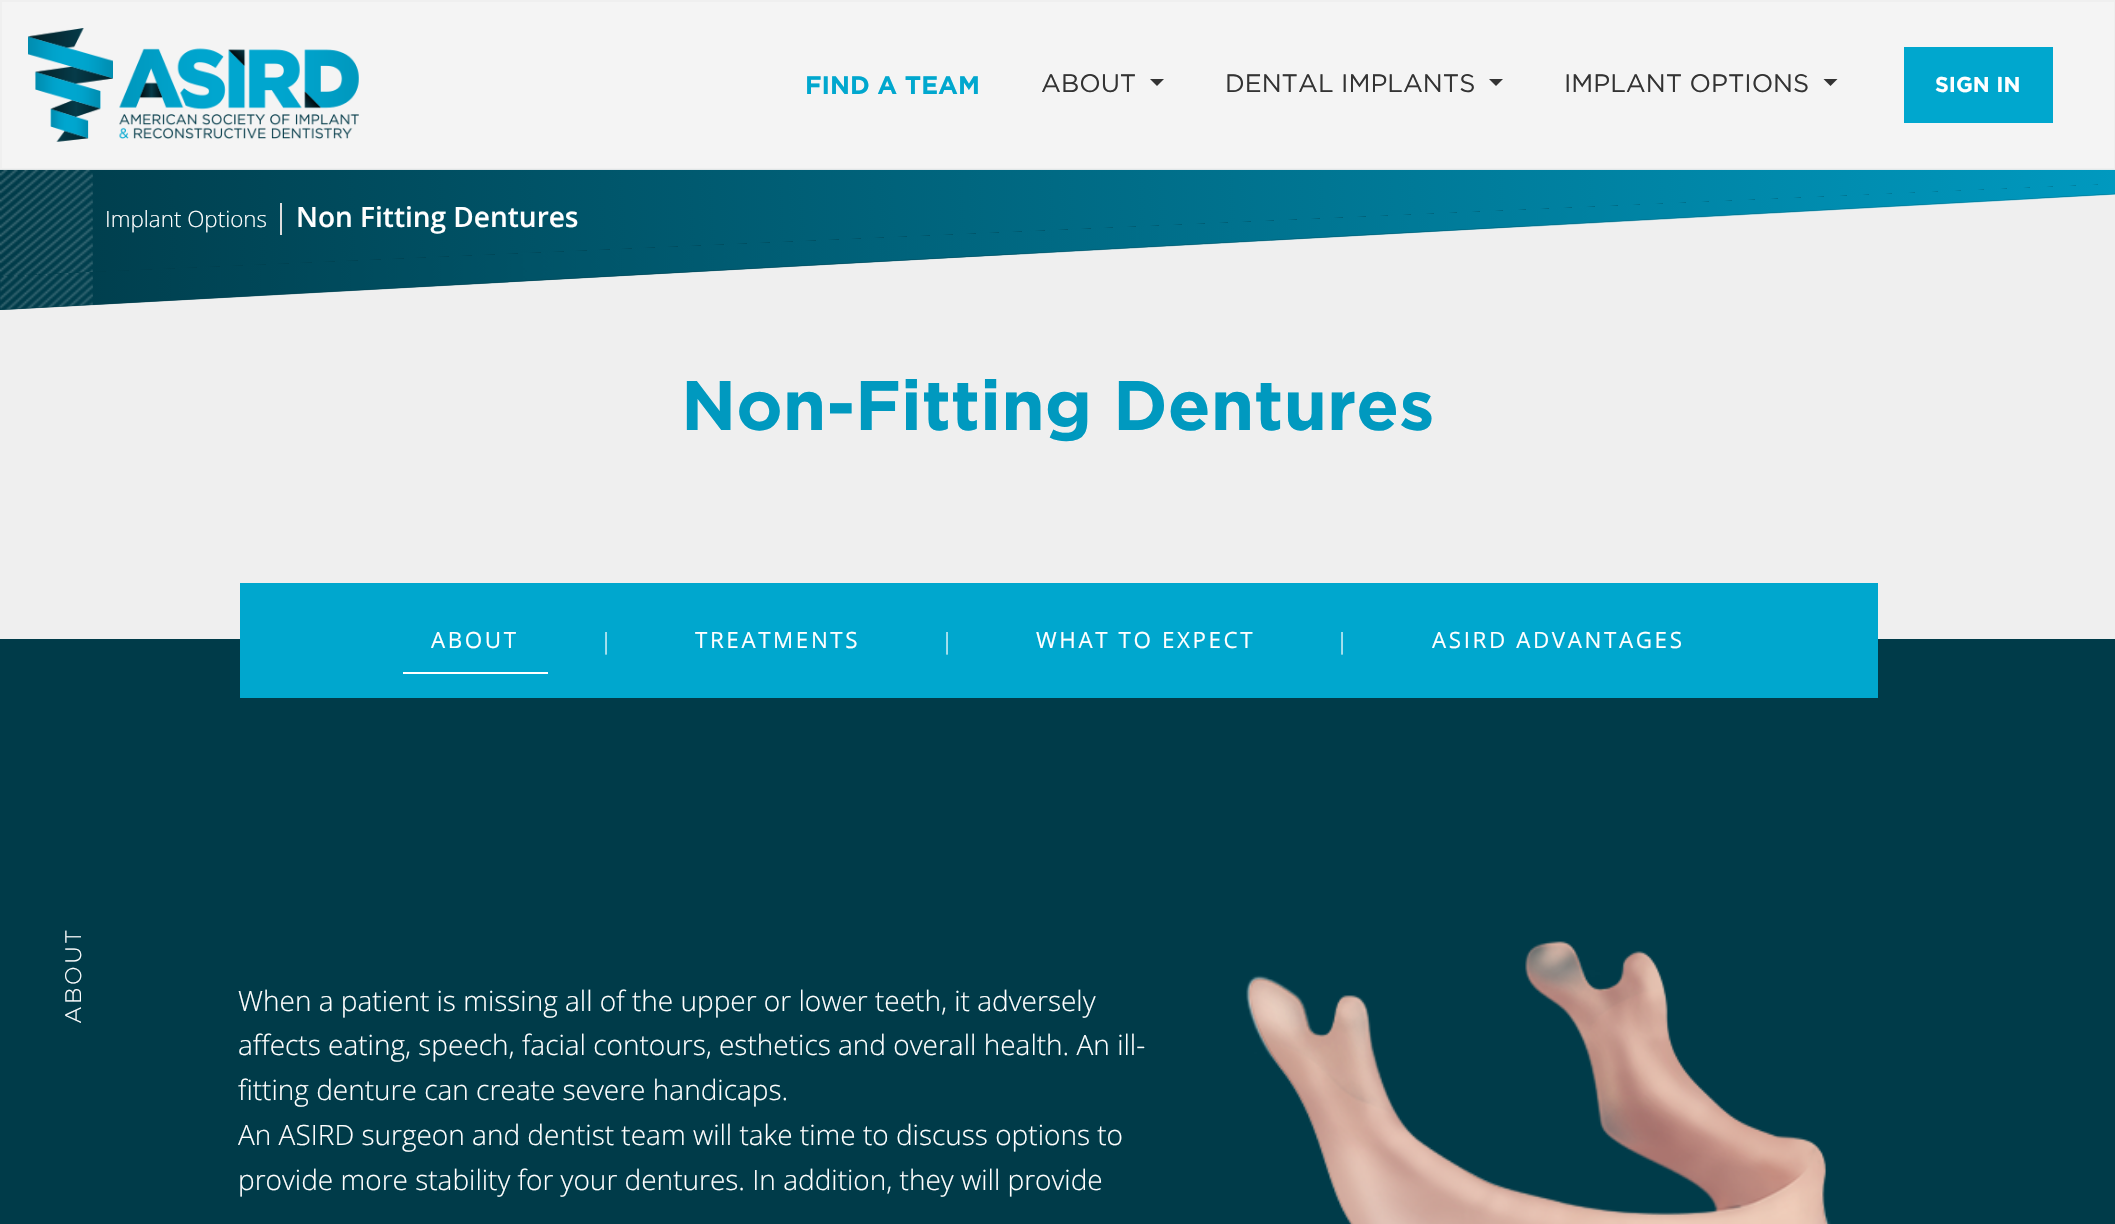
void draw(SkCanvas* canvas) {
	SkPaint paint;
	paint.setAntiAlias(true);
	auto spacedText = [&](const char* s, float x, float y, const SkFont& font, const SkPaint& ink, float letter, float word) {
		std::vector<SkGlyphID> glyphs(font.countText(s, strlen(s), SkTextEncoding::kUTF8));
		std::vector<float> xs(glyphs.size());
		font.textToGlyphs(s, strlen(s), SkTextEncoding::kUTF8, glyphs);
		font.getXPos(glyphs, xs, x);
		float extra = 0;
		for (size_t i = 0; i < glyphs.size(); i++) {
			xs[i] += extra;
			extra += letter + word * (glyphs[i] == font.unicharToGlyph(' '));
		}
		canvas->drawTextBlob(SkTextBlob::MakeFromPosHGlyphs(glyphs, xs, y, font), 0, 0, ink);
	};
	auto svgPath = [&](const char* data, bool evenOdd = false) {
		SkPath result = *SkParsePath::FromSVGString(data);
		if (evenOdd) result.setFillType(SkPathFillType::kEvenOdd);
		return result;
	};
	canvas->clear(0xffefefef);
	paint.setColor(0xfff4f4f4);
	canvas->drawRect(SkRect::MakeXYWH(2, 2, 2112, 166), paint);
	canvas->drawImageRect(SkImages::DeferredFromEncodedData(SkData::MakeFromFileName("img1.png")), SkRect::MakeXYWH(28, 28, 331, 114), SkSamplingOptions());
	SkFont f1(fontMgr->matchFamilyStyle("Gotham", SkFontStyle::Bold()), 25.25);
	f1.setSubpixel(true);
	paint.setColor(0xff00a7ce);
	canvas->drawString("FIND A TEAM", 805, 94, f1, paint);
	SkFont f2(fontMgr->matchFamilyStyle("Gotham", SkFontStyle::Normal()), 25.25);
	f2.setSubpixel(true);
	paint.setColor(0xff333333);
	canvas->drawString("ABOUT", 1041, 92, f2, paint);
	canvas->drawPath(svgPath("M1150 79H1164L1157 86Z"), paint);
	canvas->drawString("DENTAL IMPLANTS", 1225, 92, f2, paint);
	canvas->drawPath(svgPath("M1489 79H1503L1496 86Z"), paint);
	canvas->drawString("IMPLANT OPTIONS", 1564, 92, f2, paint);
	canvas->drawPath(svgPath("M1823.5 79H1837.5L1830.5 86Z"), paint);
	paint.setColor(0xff00a7ce);
	canvas->drawRect(SkRect::MakeXYWH(1904, 47, 149, 76), paint);
	SkFont f3(fontMgr->matchFamilyStyle("Gotham", SkFontStyle::Bold()), 21.5);
	f3.setSubpixel(true);
	paint.setColor(0xffffffff);
	canvas->drawString("SIGN IN", 1935, 92, f3, paint);
	canvas->drawImageRect(SkImages::DeferredFromEncodedData(SkData::MakeFromFileName("img2.png")), SkRect::MakeXYWH(0, 169, 2115, 141), SkSamplingOptions());
	paint.setColor(0xff003b49);
	canvas->drawPath(svgPath("M0 276V310L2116 194V184Z"), paint);
	canvas->drawImageRect(SkImages::DeferredFromEncodedData(SkData::MakeFromFileName("img3.png")), SkRect::MakeXYWH(0, 184, 2115, 126), SkSamplingOptions());
	SkFont f4(fontMgr->matchFamilyStyle("Open Sans", SkFontStyle(300, SkFontStyle::kNormal_Width, SkFontStyle::kUpright_Slant)), 22.4);
	f4.setSubpixel(true);
	paint.setColor(0xffffffff);
	canvas->drawString("Implant Options", 105, 227, f4, paint);
	SkFont f5(fontMgr->matchFamilyStyle("Open Sans", SkFontStyle(600, SkFontStyle::kNormal_Width, SkFontStyle::kUpright_Slant)), 28);
	f5.setSubpixel(true);
	canvas->drawString("Non Fitting Dentures", 296, 227, f5, paint);
	paint.setColor(0xffdddddd);
	canvas->drawRect(SkRect::MakeXYWH(280, 203, 2, 32), paint);
	SkFont f6(fontMgr->matchFamilyStyle("Gotham", SkFontStyle::Bold()), 70);
	f6.setSubpixel(true);
	paint.setColor(0xff0099bf);
	canvas->drawString("Non-Fitting Dentures", 681, 430, f6, paint);
	paint.setColor(0xff003b49);
	canvas->drawRect(SkRect::MakeXYWH(0, 639, 2115, 585), paint);
	paint.setColor(0xff00a7ce);
	canvas->drawRect(SkRect::MakeXYWH(240, 583, 1638, 115), paint);
	paint.setColor(0xffffffff);
	canvas->drawRect(SkRect::MakeXYWH(403, 672, 145, 2), paint);
	SkFont f7(fontMgr->matchFamilyStyle("Open Sans", SkFontStyle::Normal()), 22.4);
	f7.setSubpixel(true);
	spacedText("ABOUT", 431, 648, f7, paint, 2.6, 0);
	spacedText("|", 600, 649, f4, paint, 2.6, 0);
	spacedText("TREATMENTS", 695, 648, f7, paint, 2.6, 0);
	spacedText("|", 941, 649, f4, paint, 2.6, 0);
	spacedText("WHAT TO EXPECT", 1036, 648, f7, paint, 2.6, 0);
	spacedText("|", 1336, 649, f4, paint, 2.6, 0);
	spacedText("ASIRD ADVANTAGES", 1432, 648, f7, paint, 2.6, 0);
	SkFont f8(fontMgr->matchFamilyStyle("Gotham", SkFontStyle(300, SkFontStyle::kNormal_Width, SkFontStyle::kUpright_Slant)), 22.4);
	f8.setSubpixel(true);
	canvas->save();
	canvas->rotate(-90, 81, 1024);
	spacedText("ABOUT", 81, 1024, f8, paint, 2.5, 0);
	canvas->restore();
	SkFont f9(fontMgr->matchFamilyStyle("Open Sans", SkFontStyle(300, SkFontStyle::kNormal_Width, SkFontStyle::kUpright_Slant)), 28);
	f9.setSubpixel(true);
	canvas->drawString("When a patient is missing all of the upper or lower teeth, it adversely", 238, 1011, f9, paint);
	canvas->drawString("affects eating, speech, facial contours, esthetics and overall health. An ill-", 238, 1055, f9, paint);
	canvas->drawString("fitting denture can create severe handicaps.", 238, 1100, f9, paint);
	canvas->drawString("An ASIRD surgeon and dentist team will take time to discuss options to", 238, 1145, f9, paint);
	canvas->drawString("provide more stability for your dentures. In addition, they will provide", 238, 1190, f9, paint);
	canvas->drawImageRect(SkImages::DeferredFromEncodedData(SkData::MakeFromFileName("img4.png")), SkRect::MakeXYWH(1246, 941, 585, 283), SkSamplingOptions());
}
